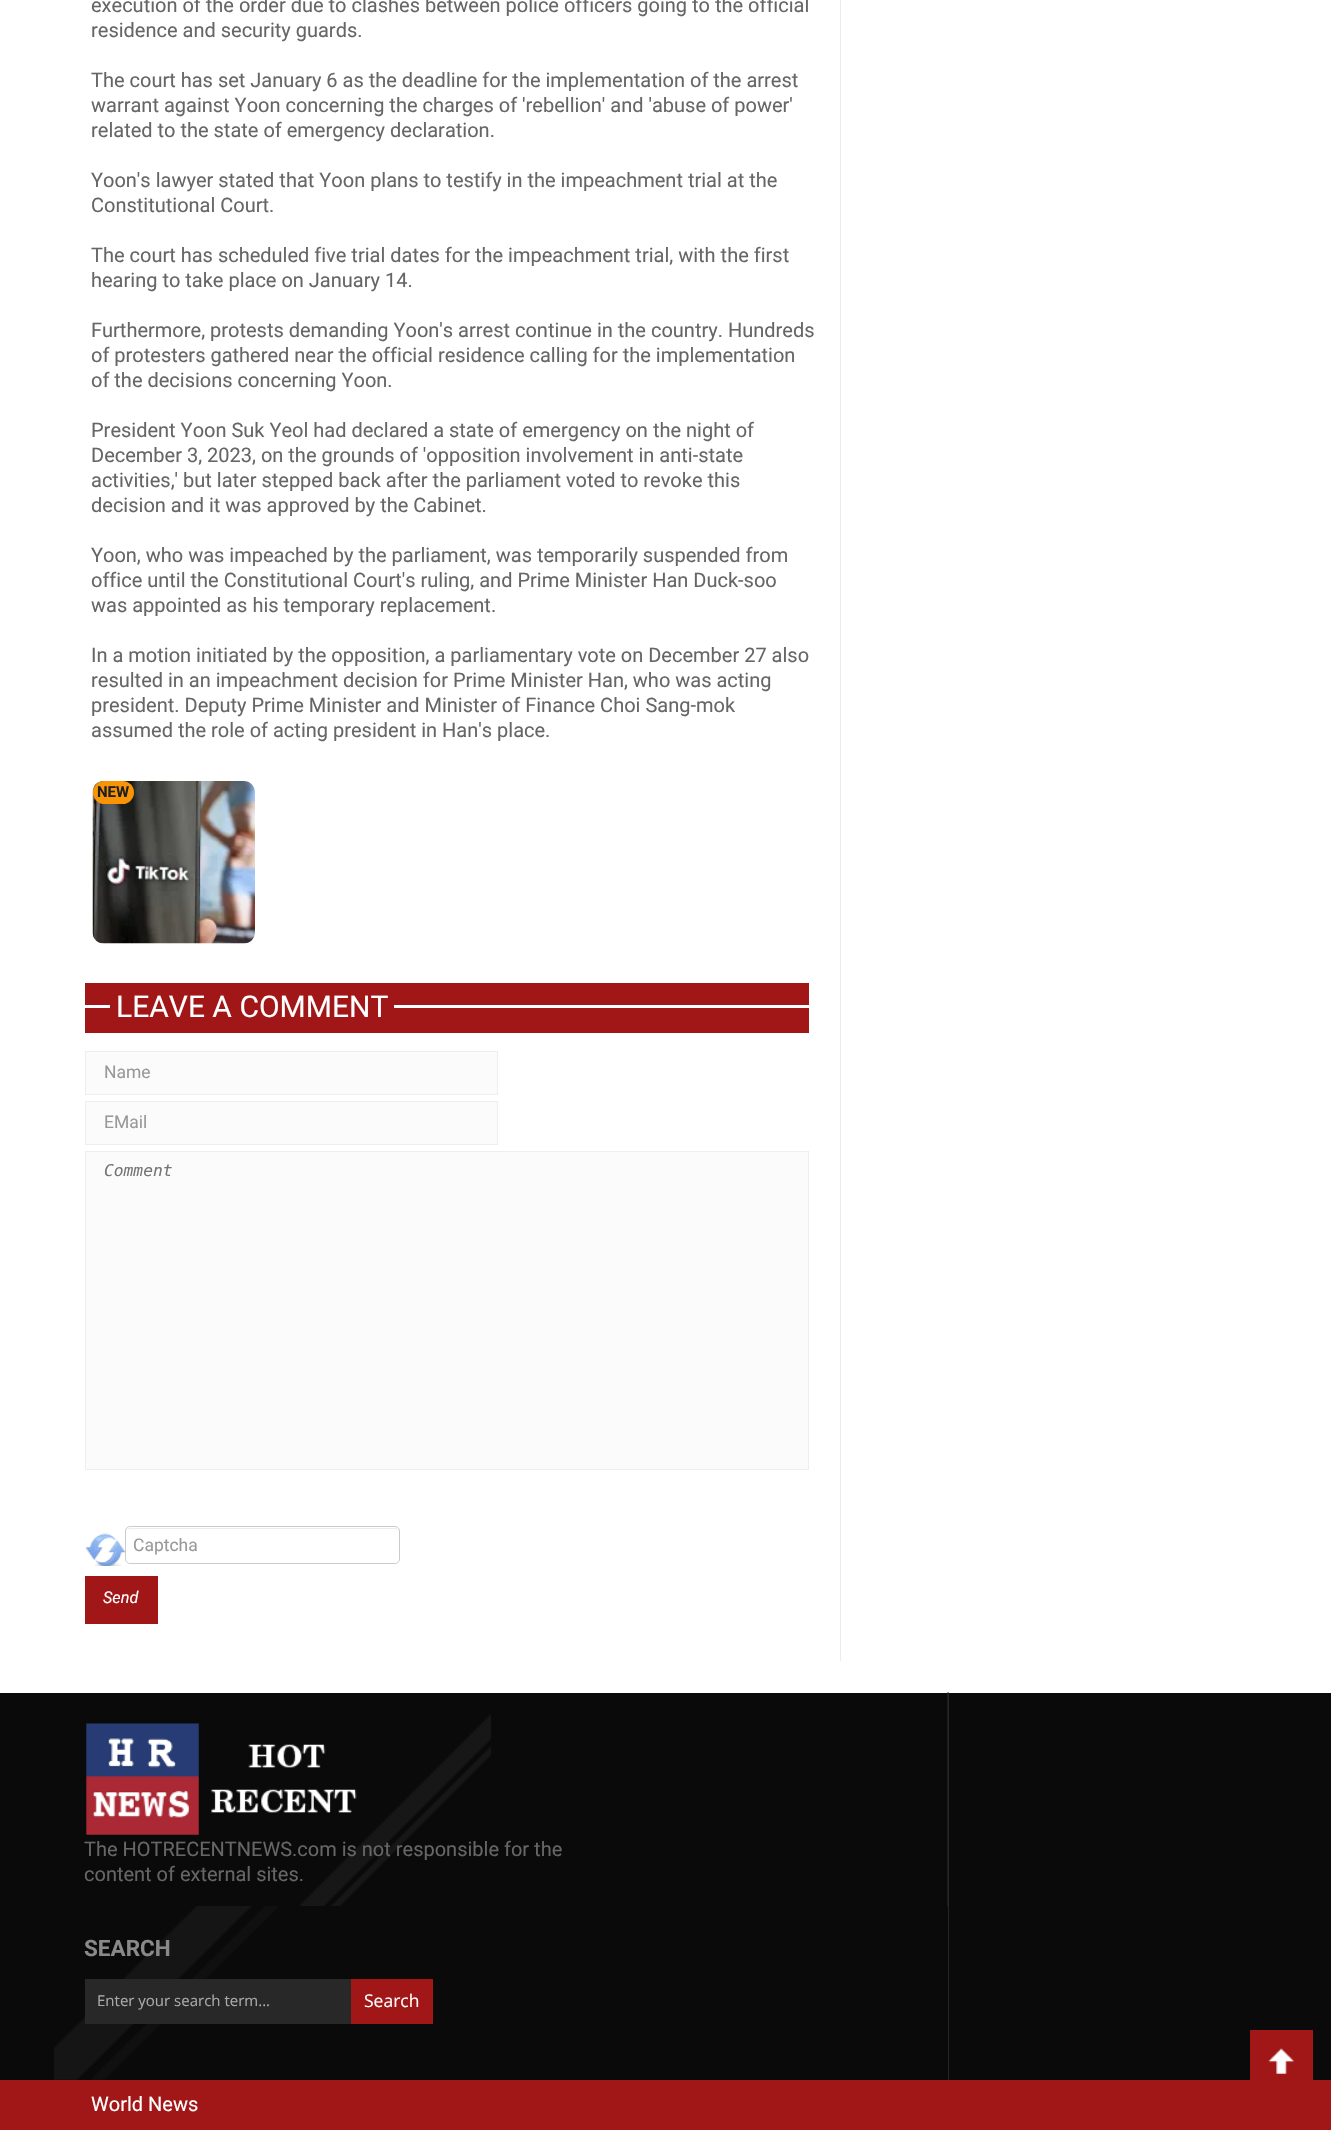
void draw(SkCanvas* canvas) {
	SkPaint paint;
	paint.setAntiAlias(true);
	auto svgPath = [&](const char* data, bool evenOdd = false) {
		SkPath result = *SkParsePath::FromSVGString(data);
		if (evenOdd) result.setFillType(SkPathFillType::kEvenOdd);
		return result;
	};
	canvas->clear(0xffffffff);
	paint.setColor(0xffebebeb);
	canvas->drawRect(SkRect::MakeXYWH(840, 0, 1, 1661), paint);
	SkFont f1(fontMgr->matchFamilyStyle("Roboto", SkFontStyle::Normal()), 20);
	f1.setSubpixel(true);
	paint.setColor(0xff666666);
	canvas->drawString("execution of the order due to clashes between police officers going to the official", 91, 12, f1, paint);
	canvas->drawString("residence and security guards.", 91, 37, f1, paint);
	canvas->drawString("The court has set January 6 as the deadline for the implementation of the arrest", 91, 87, f1, paint);
	canvas->drawString("warrant against Yoon concerning the charges of 'rebellion' and 'abuse of power'", 91, 112, f1, paint);
	canvas->drawString("related to the state of emergency declaration.", 91, 137, f1, paint);
	canvas->drawString("Yoon's lawyer stated that Yoon plans to testify in the impeachment trial at the", 91, 187, f1, paint);
	canvas->drawString("Constitutional Court.", 91, 212, f1, paint);
	canvas->drawString("The court has scheduled five trial dates for the impeachment trial, with the first", 91, 262, f1, paint);
	canvas->drawString("hearing to take place on January 14.", 91, 287, f1, paint);
	canvas->drawString("Furthermore, protests demanding Yoon's arrest continue in the country. Hundreds", 91, 337, f1, paint);
	canvas->drawString("of protesters gathered near the official residence calling for the implementation", 91, 362, f1, paint);
	canvas->drawString("of the decisions concerning Yoon.", 91, 387, f1, paint);
	canvas->drawString("President Yoon Suk Yeol had declared a state of emergency on the night of", 91, 437, f1, paint);
	canvas->drawString("December 3, 2023, on the grounds of 'opposition involvement in anti-state", 91, 462, f1, paint);
	canvas->drawString("activities,' but later stepped back after the parliament voted to revoke this", 91, 487, f1, paint);
	canvas->drawString("decision and it was approved by the Cabinet.", 91, 512, f1, paint);
	canvas->drawString("Yoon, who was impeached by the parliament, was temporarily suspended from", 91, 562, f1, paint);
	canvas->drawString("office until the Constitutional Court's ruling, and Prime Minister Han Duck-soo", 91, 587, f1, paint);
	canvas->drawString("was appointed as his temporary replacement.", 91, 612, f1, paint);
	canvas->drawString("In a motion initiated by the opposition, a parliamentary vote on December 27 also", 91, 662, f1, paint);
	canvas->drawString("resulted in an impeachment decision for Prime Minister Han, who was acting", 91, 687, f1, paint);
	canvas->drawString("president. Deputy Prime Minister and Minister of Finance Choi Sang-mok", 91, 712, f1, paint);
	canvas->drawString("assumed the role of acting president in Han's place.", 91, 737, f1, paint);
	canvas->drawImageRect(SkImages::DeferredFromEncodedData(SkData::MakeFromFileName("img1.png")), SkRect::MakeXYWH(92, 781, 163, 163), SkSamplingOptions());
	paint.setColor(0xfff89406);
	canvas->drawRoundRect(SkRect::MakeXYWH(93, 781, 41, 23), 11.5, 11.5, paint);
	SkFont f2(fontMgr->matchFamilyStyle("Roboto", SkFontStyle::Bold()), 15);
	f2.setSubpixel(true);
	paint.setColor(0xff1f1f1f);
	canvas->drawString("NEW", 97, 797, f2, paint);
	paint.setColor(0xffa11717);
	canvas->drawRect(SkRect::MakeXYWH(85, 983, 724, 50), paint);
	paint.setColor(0xffffffff);
	canvas->drawRect(SkRect::MakeXYWH(85, 1005, 724, 3), paint);
	paint.setColor(0xffa11717);
	canvas->drawRect(SkRect::MakeXYWH(110, 1005, 284, 3), paint);
	SkFont f3(fontMgr->matchFamilyStyle("Roboto", SkFontStyle::Normal()), 30);
	f3.setSubpixel(true);
	paint.setColor(0xffffffff);
	canvas->drawString("LEAVE A COMMENT", 116, 1017, f3, paint);
	paint.setColor(0xfffbfbfb);
	canvas->drawRect(SkRect::MakeXYWH(85.5, 1051.5, 412, 43), paint);
	paint.setStroke(true);
	paint.setStrokeWidth(1);
	paint.setColor(0xffeeeeee);
	canvas->drawRect(SkRect::MakeXYWH(85.5, 1051.5, 412, 43), paint);
	SkFont f4(fontMgr->matchFamilyStyle("Roboto", SkFontStyle::Normal()), 17.5);
	f4.setSubpixel(true);
	paint.setStroke(false);
	paint.setColor(0xff999999);
	canvas->drawString("Name", 104, 1078, f4, paint);
	paint.setColor(0xfffbfbfb);
	canvas->drawRect(SkRect::MakeXYWH(85.5, 1101.5, 412, 43), paint);
	paint.setStroke(true);
	paint.setColor(0xffeeeeee);
	canvas->drawRect(SkRect::MakeXYWH(85.5, 1101.5, 412, 43), paint);
	paint.setStroke(false);
	paint.setColor(0xff999999);
	canvas->drawString("EMail", 104, 1128, f4, paint);
	paint.setColor(0xfffbfbfb);
	canvas->drawRect(SkRect::MakeXYWH(85.5, 1151.5, 723, 318), paint);
	paint.setStroke(true);
	paint.setColor(0xffeeeeee);
	canvas->drawRect(SkRect::MakeXYWH(85.5, 1151.5, 723, 318), paint);
	SkFont f5(fontMgr->matchFamilyStyle("DejaVu Sans Mono", SkFontStyle::Italic()), 16.25);
	f5.setSubpixel(true);
	paint.setStroke(false);
	paint.setColor(0xff757575);
	canvas->drawString("Comment", 104, 1176, f5, paint);
	canvas->drawImageRect(SkImages::DeferredFromEncodedData(SkData::MakeFromFileName("img2.png")), SkRect::MakeXYWH(85, 1533, 40, 33), SkSamplingOptions());
	paint.setColor(0xffececec);
	canvas->drawPath(svgPath("M130 1529H396L399 1531V1532C399 1530 397 1528 395 1528H130C128 1528 126 1530 126 1532C126 1530 128 1529 130 1529Z"), paint);
	paint.setStroke(true);
	paint.setColor(0xffcccccc);
	canvas->drawRoundRect(SkRect::MakeXYWH(125.5, 1526.5, 274, 37), 4.5, 4.5, paint);
	paint.setStroke(false);
	paint.setColor(0xff999999);
	canvas->drawString("Captcha", 133, 1551, f4, paint);
	paint.setColor(0xffa11717);
	canvas->drawRect(SkRect::MakeXYWH(85, 1576, 73, 48), paint);
	SkFont f6(fontMgr->matchFamilyStyle("Roboto", SkFontStyle::Italic()), 16.25);
	f6.setSubpixel(true);
	paint.setColor(0xffffffff);
	canvas->drawString("Send", 103, 1603, f6, paint);
	paint.setColor(0xff0a0a0a);
	canvas->drawRect(SkRect::MakeXYWH(0, 1693, 1331, 387), paint);
	canvas->drawImageRect(SkImages::DeferredFromEncodedData(SkData::MakeFromFileName("img3.png")), SkRect::MakeXYWH(947, 1692, 2, 388), SkSamplingOptions());
	canvas->drawImageRect(SkImages::DeferredFromEncodedData(SkData::MakeFromFileName("img4.png")), SkRect::MakeXYWH(300, 1714, 191, 192), SkSamplingOptions());
	canvas->drawImageRect(SkImages::DeferredFromEncodedData(SkData::MakeFromFileName("img5.png")), SkRect::MakeXYWH(86, 1723, 271, 112), SkSamplingOptions());
	paint.setColor(0xff666666);
	canvas->drawString("The HOTRECENTNEWS.com is not responsible for the", 84, 1856, f1, paint);
	canvas->drawString("content of external sites.", 84, 1881, f1, paint);
	paint.setColor(0xff0a0a0a);
	canvas->drawRect(SkRect::MakeXYWH(947, 1906, 1, 174), paint);
	canvas->drawImageRect(SkImages::DeferredFromEncodedData(SkData::MakeFromFileName("img6.png")), SkRect::MakeXYWH(54, 1906, 224, 174), SkSamplingOptions());
	SkFont f7(fontMgr->matchFamilyStyle("Roboto", SkFontStyle::Bold()), 22.5);
	f7.setSubpixel(true);
	paint.setColor(0xff898989);
	canvas->drawString("SEARCH", 84, 1956, f7, paint);
	paint.setColor(0xff282828);
	canvas->drawRect(SkRect::MakeXYWH(85, 1979, 266, 45), paint);
	SkFont f8(fontMgr->matchFamilyStyle("Open Sans", SkFontStyle::Normal()), 15);
	f8.setSubpixel(true);
	paint.setColor(0xffaaaaaa);
	canvas->drawString("Enter your search term...", 97, 2006, f8, paint);
	paint.setColor(0xffa11717);
	canvas->drawRect(SkRect::MakeXYWH(351, 1979, 82, 45), paint);
	SkFont f9(fontMgr->matchFamilyStyle("Open Sans", SkFontStyle::Normal()), 17.5);
	f9.setSubpixel(true);
	paint.setColor(0xffffffff);
	canvas->drawString("Search", 364, 2007, f9, paint);
	paint.setColor(0xffa11717);
	canvas->drawRect(SkRect::MakeXYWH(1250, 2030, 63, 50), paint);
	canvas->drawImageRect(SkImages::DeferredFromEncodedData(SkData::MakeFromFileName("img7.png")), SkRect::MakeXYWH(1268, 2048, 26, 26), SkSamplingOptions());
	canvas->drawRect(SkRect::MakeXYWH(0, 2080, 1331, 50), paint);
	paint.setColor(0xffffffff);
	canvas->drawString("World News", 91, 2111, f1, paint);
}
